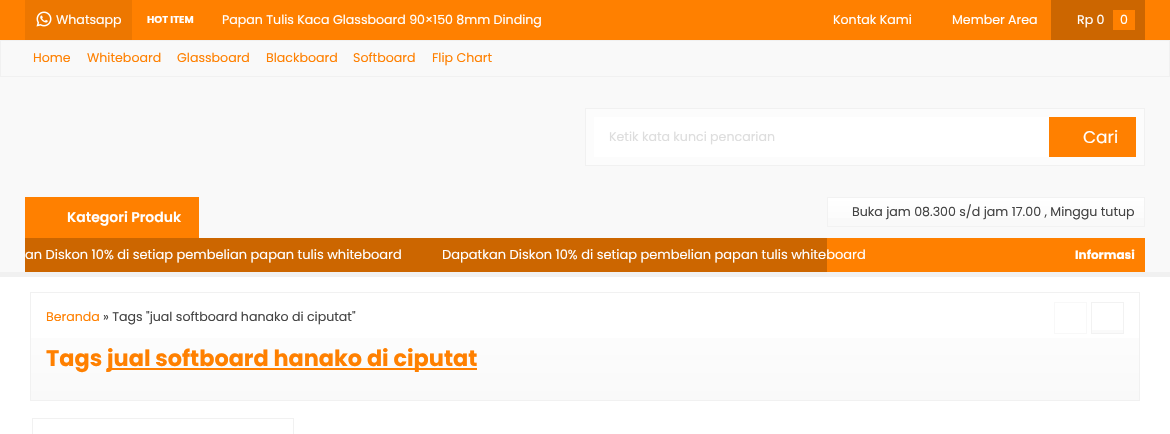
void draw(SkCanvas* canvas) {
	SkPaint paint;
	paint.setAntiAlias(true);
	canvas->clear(0xfff9f9f9);
	paint.setColor(0xffff8000);
	canvas->drawRect(SkRect::MakeXYWH(0, 0, 1170, 40), paint);
	paint.setColor(0xffed7700);
	canvas->drawRect(SkRect::MakeXYWH(25, 0, 107, 40), paint);
	canvas->drawImageRect(SkImages::DeferredFromEncodedData(SkData::MakeFromFileName("img1.png")), SkRect::MakeXYWH(36, 11, 16, 16), SkSamplingOptions());
	SkFont f1(fontMgr->matchFamilyStyle("Poppins", SkFontStyle::Normal()), 12.6);
	f1.setSubpixel(true);
	paint.setColor(0xffffffff);
	canvas->drawString("Whatsapp", 56, 24, f1, paint);
	SkFont f2(fontMgr->matchFamilyStyle("Poppins", SkFontStyle::Bold()), 10);
	f2.setSubpixel(true);
	canvas->drawString("HOT ITEM", 147, 23, f2, paint);
	canvas->drawString("Papan Tulis Kaca Glassboard 90×150 8mm Dinding", 222, 24, f1, paint);
	canvas->drawString("Kontak Kami", 833, 24, f1, paint);
	canvas->drawString("Member Area", 952, 24, f1, paint);
	paint.setColor(0xffcc6600);
	canvas->drawRect(SkRect::MakeXYWH(1051, 0, 94, 40), paint);
	paint.setColor(0xffffffff);
	canvas->drawString("Rp 0", 1077, 24, f1, paint);
	paint.setColor(0xffff8000);
	canvas->drawRect(SkRect::MakeXYWH(1113, 10, 22, 20), paint);
	paint.setColor(0xffffffff);
	canvas->drawString("0", 1120, 24, f1, paint);
	paint.setStroke(true);
	paint.setStrokeWidth(1);
	paint.setColor(0xfff1f1f1);
	canvas->drawRect(SkRect::MakeXYWH(0.5, 40.5, 1169, 36), paint);
	paint.setStroke(false);
	paint.setColor(0xffff8000);
	canvas->drawString("Home", 33, 62, f1, paint);
	canvas->drawString("Whiteboard", 87, 62, f1, paint);
	canvas->drawString("Glassboard", 177, 62, f1, paint);
	canvas->drawString("Blackboard", 266, 62, f1, paint);
	canvas->drawString("Softboard", 353, 62, f1, paint);
	canvas->drawString("Flip Chart", 432, 62, f1, paint);
	paint.setColor(0xfffcfcfc);
	canvas->drawRect(SkRect::MakeXYWH(585.5, 108.5, 559, 57), paint);
	paint.setStroke(true);
	paint.setColor(0xfff1f1f1);
	canvas->drawRect(SkRect::MakeXYWH(585.5, 108.5, 559, 57), paint);
	paint.setStroke(false);
	paint.setColor(0xffffffff);
	canvas->drawRect(SkRect::MakeXYWH(594, 117, 455, 40), paint);
	paint.setColor(0xffdddddd);
	canvas->drawString("Ketik kata kunci pencarian", 609, 141, f1, paint);
	paint.setColor(0xffff8000);
	canvas->drawRect(SkRect::MakeXYWH(1049, 117, 87, 40), paint);
	SkFont f3(fontMgr->matchFamilyStyle("Poppins", SkFontStyle::Normal()), 17);
	f3.setSubpixel(true);
	paint.setColor(0xffffffff);
	canvas->drawString("Cari", 1083, 143, f3, paint);
	paint.setColor(0xffff8000);
	canvas->drawRect(SkRect::MakeXYWH(25, 197, 174, 41), paint);
	SkFont f4(fontMgr->matchFamilyStyle("Poppins", SkFontStyle(600, SkFontStyle::kNormal_Width, SkFontStyle::kUpright_Slant)), 14);
	f4.setSubpixel(true);
	paint.setColor(0xffffffff);
	canvas->drawString("Kategori Produk", 67, 222, f4, paint);
	{
		const SkColor colors[] = {0xfffafafa, 0xffffffff};
		const float stops[] = {0, 1};
		const SkPoint ends[] = {{986, 226}, {986, 198}};
		paint.setShader(SkGradientShader::MakeLinear(ends, colors, stops, 2, SkTileMode::kClamp));
		paint.setAlpha(255);
	}
	canvas->drawRect(SkRect::MakeXYWH(828, 198, 316, 20), paint);
	paint.setStroke(true);
	paint.setShader(nullptr);
	paint.setColor(0xfff2f2f2);
	canvas->drawRect(SkRect::MakeXYWH(827.5, 197.5, 317, 29), paint);
	paint.setStroke(false);
	paint.setColor(0xff444444);
	canvas->drawString("Buka jam 08.300 s/d jam 17.00 , Minggu tutup", 852, 216, f1, paint);
	paint.setColor(0xffff8000);
	canvas->drawRect(SkRect::MakeXYWH(827, 238, 318, 34), paint);
	paint.setColor(0xffcc6600);
	canvas->drawRect(SkRect::MakeXYWH(25, 238, 802, 34), paint);
	SkFont f5(fontMgr->matchFamilyStyle("Poppins", SkFontStyle::Normal()), 13);
	f5.setSubpixel(true);
	paint.setColor(0xffffffff);
	canvas->drawString("an Diskon 10% di setiap pembelian papan tulis whiteboard", 25, 259, f5, paint);
	canvas->drawString("Dapatkan Diskon 10% di setiap pembelian papan tulis whiteboard", 442, 259, f5, paint);
	SkFont f6(fontMgr->matchFamilyStyle("Poppins", SkFontStyle::Bold()), 12);
	f6.setSubpixel(true);
	canvas->drawString("Informasi", 1075, 259, f6, paint);
	canvas->drawRect(SkRect::MakeXYWH(0, 277, 1170, 157), paint);
	paint.setColor(0xfff1f1f1);
	canvas->drawRect(SkRect::MakeXYWH(0, 272, 1170, 5), paint);
	{
		const SkColor colors[] = {0xffffffff, 0xfff9f9f9};
		const float stops[] = {0, 1};
		const SkPoint ends[] = {{585, 293}, {585, 400}};
		paint.setShader(SkGradientShader::MakeLinear(ends, colors, stops, 2, SkTileMode::kClamp));
		paint.setAlpha(255);
	}
	canvas->drawRect(SkRect::MakeXYWH(31, 338, 1108, 62), paint);
	paint.setStroke(true);
	paint.setShader(nullptr);
	paint.setColor(0xfff1f1f1);
	canvas->drawRect(SkRect::MakeXYWH(30.5, 292.5, 1109, 108), paint);
	paint.setStroke(false);
	paint.setColor(0xffff8000);
	canvas->drawString("Beranda", 46, 321, f1, paint);
	paint.setColor(0xff444444);
	canvas->drawString("» Tags \"jual softboard hanako di ciputat\"", 103, 321, f1, paint);
	paint.setStroke(true);
	paint.setColor(0xfff8f8f8);
	canvas->drawRect(SkRect::MakeXYWH(1054.5, 302.5, 32, 31), paint);
	paint.setStroke(false);
	{
		const SkColor colors[] = {0xfffafafa, 0xffffffff};
		const float stops[] = {0, 1};
		const SkPoint ends[] = {{1108, 333}, {1108, 303}};
		paint.setShader(SkGradientShader::MakeLinear(ends, colors, stops, 2, SkTileMode::kClamp));
		paint.setAlpha(255);
	}
	canvas->drawRect(SkRect::MakeXYWH(1092, 330, 31, 3), paint);
	paint.setStroke(true);
	paint.setShader(nullptr);
	paint.setColor(0xfff2f2f2);
	canvas->drawRect(SkRect::MakeXYWH(1091.5, 302.5, 32, 31), paint);
	SkFont f7(fontMgr->matchFamilyStyle("Poppins", SkFontStyle::Bold()), 22.4);
	f7.setSubpixel(true);
	paint.setStroke(false);
	paint.setColor(0xffff8000);
	canvas->drawString("Tags", 46, 366, f7, paint);
	canvas->drawRect(SkRect::MakeXYWH(107, 368, 370, 2), paint);
	canvas->drawString("jual softboard hanako di ciputat", 107, 366, f7, paint);
	paint.setStroke(true);
	paint.setColor(0xfff1f1f1);
	canvas->drawRect(SkRect::MakeXYWH(32.5, 418.5, 261, 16), paint);
}
